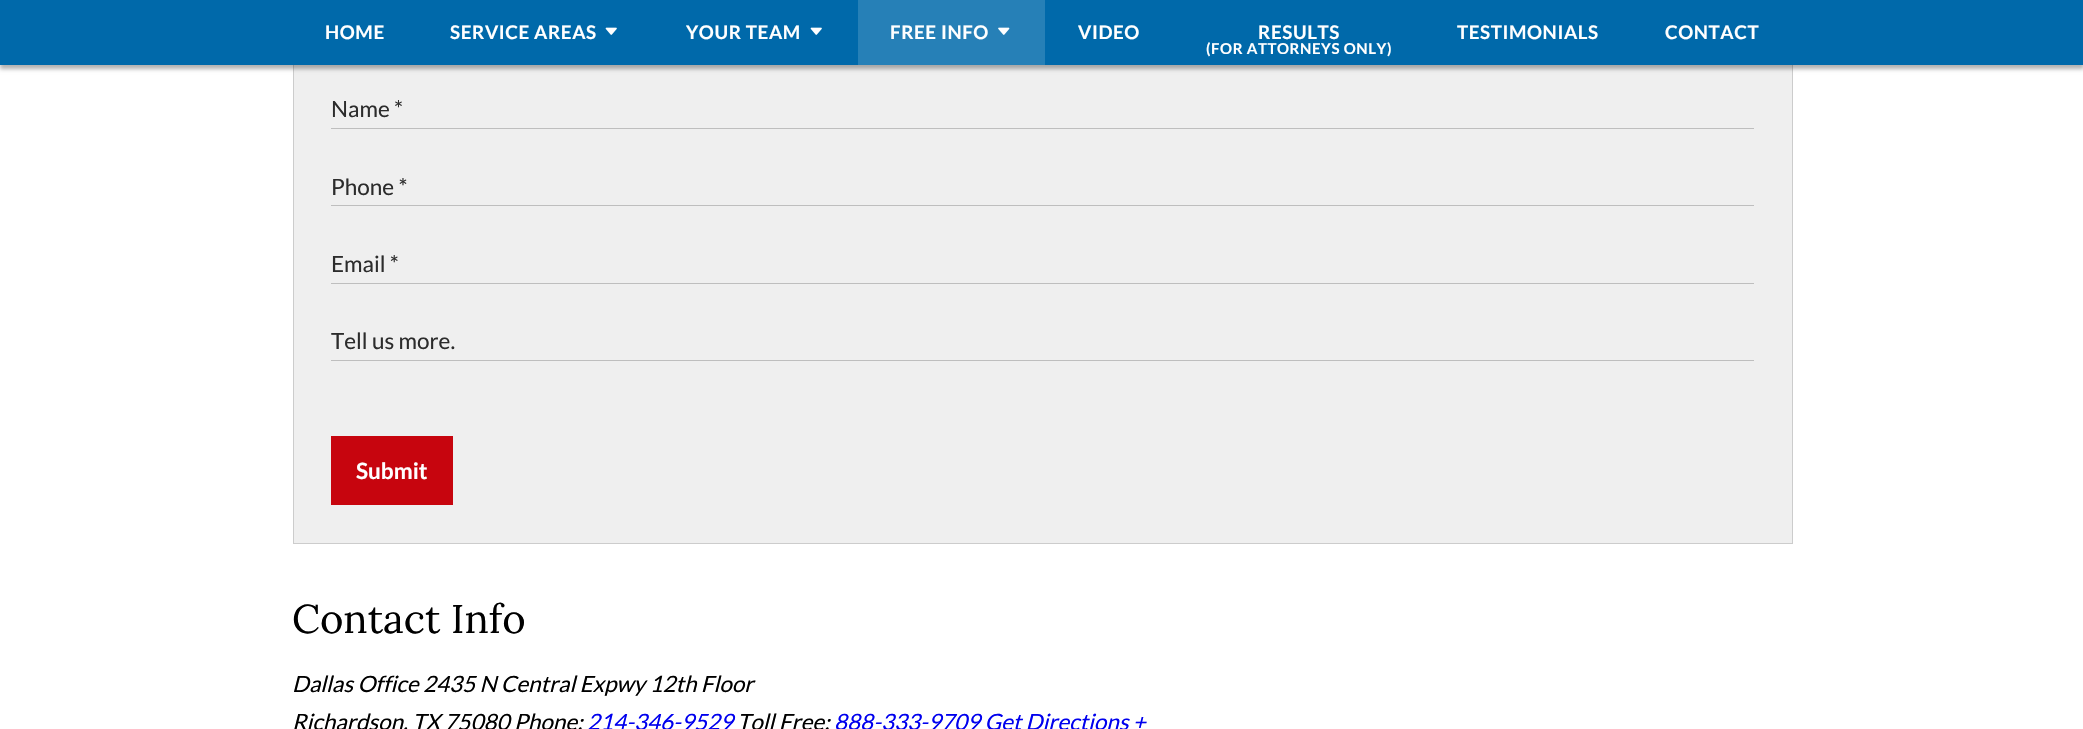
void draw(SkCanvas* canvas) {
	SkPaint paint;
	paint.setAntiAlias(true);
	auto spacedText = [&](const char* s, float x, float y, const SkFont& font, const SkPaint& ink, float letter, float word) {
		std::vector<SkGlyphID> glyphs(font.countText(s, strlen(s), SkTextEncoding::kUTF8));
		std::vector<float> xs(glyphs.size());
		font.textToGlyphs(s, strlen(s), SkTextEncoding::kUTF8, glyphs);
		font.getXPos(glyphs, xs, x);
		float extra = 0;
		for (size_t i = 0; i < glyphs.size(); i++) {
			xs[i] += extra;
			extra += letter + word * (glyphs[i] == font.unicharToGlyph(' '));
		}
		canvas->drawTextBlob(SkTextBlob::MakeFromPosHGlyphs(glyphs, xs, y, font), 0, 0, ink);
	};
	canvas->clear(0xffffffff);
	paint.setColor(0xffefefef);
	canvas->drawRect(SkRect::MakeXYWH(294, 65, 1498, 478), paint);
	paint.setStroke(true);
	paint.setStrokeWidth(1);
	paint.setColor(0xffcccccc);
	canvas->drawRect(SkRect::MakeXYWH(293.5, -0.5, 1499, 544), paint);
	paint.setStroke(false);
	paint.setColor(0x4d000000);
	paint.setMaskFilter(SkMaskFilter::MakeBlur(kNormal_SkBlurStyle, 2));
	canvas->drawRect(SkRect::MakeXYWH(0, 3, 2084, 66), paint);
	paint.setMaskFilter(nullptr);
	paint.setColor(0xff0069aa);
	canvas->drawRect(SkRect::MakeXYWH(0, 0, 2083, 65), paint);
	SkFont f1(fontMgr->matchFamilyStyle("Lato", SkFontStyle::Bold()), 18.75);
	f1.setSubpixel(true);
	paint.setColor(0xffffffff);
	spacedText("HOME", 325, 39, f1, paint, 0.6, 0);
	spacedText("SERVICE AREAS", 450, 39, f1, paint, 0.6, 0);
	canvas->drawImageRect(SkImages::DeferredFromEncodedData(SkData::MakeFromFileName("img1.png")), SkRect::MakeXYWH(605, 27, 12, 8), SkSamplingOptions());
	spacedText("YOUR TEAM", 686, 39, f1, paint, 0.6, 0);
	canvas->drawImageRect(SkImages::DeferredFromEncodedData(SkData::MakeFromFileName("img1.png")), SkRect::MakeXYWH(810, 27, 12, 8), SkSamplingOptions());
	paint.setColor(0xff2680b7);
	canvas->drawRect(SkRect::MakeXYWH(858, 0, 187, 65), paint);
	paint.setColor(0xffffffff);
	spacedText("FREE INFO", 890, 39, f1, paint, 0.6, 0);
	canvas->drawImageRect(SkImages::DeferredFromEncodedData(SkData::MakeFromFileName("img2.png")), SkRect::MakeXYWH(998, 27, 12, 8), SkSamplingOptions());
	spacedText("VIDEO", 1078, 39, f1, paint, 0.6, 0);
	spacedText("RESULTS", 1258, 39, f1, paint, 0.6, 0);
	SkFont f2(fontMgr->matchFamilyStyle("Lato", SkFontStyle::Bold()), 15);
	f2.setSubpixel(true);
	spacedText("(FOR ATTORNEYS ONLY)", 1206, 54, f2, paint, 0.6, 0);
	spacedText("TESTIMONIALS", 1457, 39, f1, paint, 0.6, 0);
	spacedText("CONTACT", 1665, 39, f1, paint, 0.6, 0);
	paint.setColor(0xffbebebe);
	canvas->drawRect(SkRect::MakeXYWH(331, 128, 1423, 1), paint);
	SkFont f3(fontMgr->matchFamilyStyle("Lato", SkFontStyle::Normal()), 22.5);
	f3.setSubpixel(true);
	paint.setColor(0xff2c2c2c);
	canvas->drawString("Name *", 331, 117, f3, paint);
	paint.setColor(0xffbebebe);
	canvas->drawRect(SkRect::MakeXYWH(331, 205, 1423, 1), paint);
	paint.setColor(0xff2c2c2c);
	canvas->drawString("Phone *", 331, 195, f3, paint);
	paint.setColor(0xffbebebe);
	canvas->drawRect(SkRect::MakeXYWH(331, 283, 1423, 1), paint);
	paint.setColor(0xff2c2c2c);
	canvas->drawString("Email *", 331, 272, f3, paint);
	paint.setColor(0xffbebebe);
	canvas->drawRect(SkRect::MakeXYWH(331, 360, 1423, 1), paint);
	paint.setColor(0xff2c2c2c);
	canvas->drawString("Tell us more.", 331, 349, f3, paint);
	paint.setColor(0xffc7050e);
	canvas->drawRect(SkRect::MakeXYWH(331, 436, 122, 69), paint);
	SkFont f4(fontMgr->matchFamilyStyle("Lato", SkFontStyle::Bold()), 22.5);
	f4.setSubpixel(true);
	paint.setColor(0xffffffff);
	canvas->drawString("Submit", 356, 479, f4, paint);
	SkFont f5(fontMgr->matchFamilyStyle("Lora", SkFontStyle::Normal()), 40);
	f5.setSubpixel(true);
	paint.setColor(0xff000000);
	canvas->drawString("Contact Info", 292, 633, f5, paint);
	SkFont f6(fontMgr->matchFamilyStyle("Lato", SkFontStyle::Italic()), 22.5);
	f6.setSubpixel(true);
	canvas->drawString("Dallas Office 2435 N Central Expwy 12th Floor", 292, 692, f6, paint);
	canvas->drawString("Richardson, TX 75080 Phone:", 292, 730, f6, paint);
	paint.setColor(0xff0000ee);
	canvas->drawString("214-346-9529", 587, 730, f6, paint);
	paint.setColor(0xff000000);
	canvas->drawString("Toll Free:", 737, 730, f6, paint);
	paint.setColor(0xff0000ee);
	canvas->drawString("888-333-9709 Get Directions +", 834, 730, f6, paint);
}
